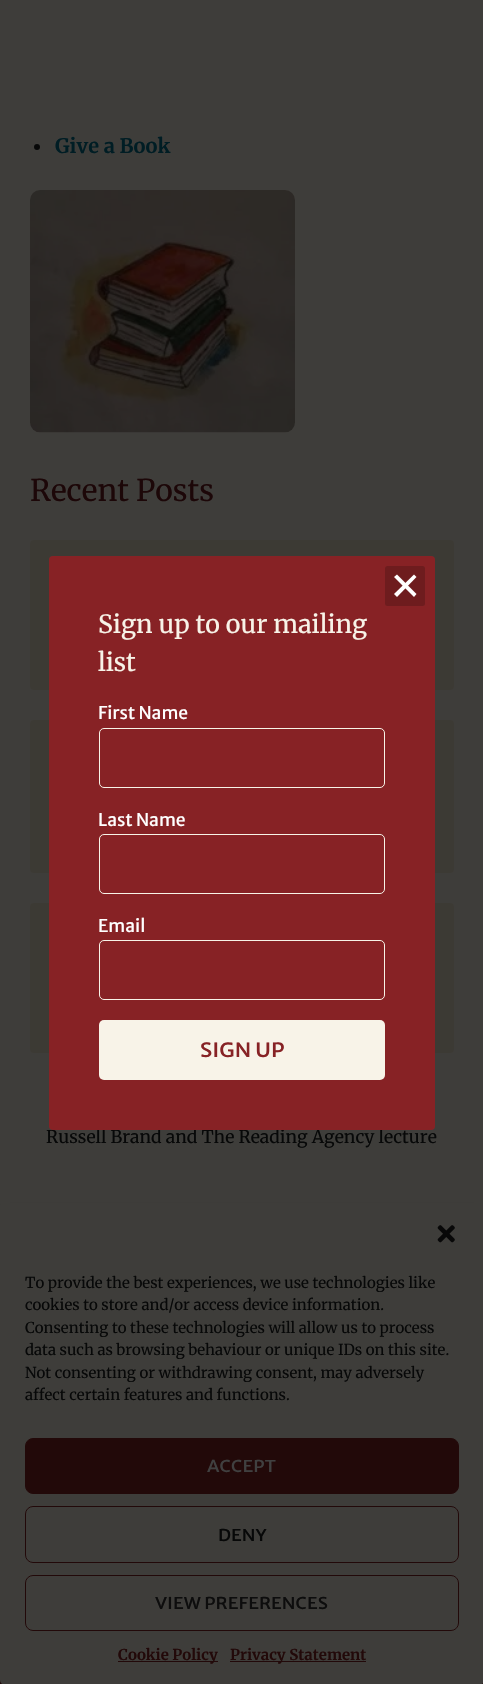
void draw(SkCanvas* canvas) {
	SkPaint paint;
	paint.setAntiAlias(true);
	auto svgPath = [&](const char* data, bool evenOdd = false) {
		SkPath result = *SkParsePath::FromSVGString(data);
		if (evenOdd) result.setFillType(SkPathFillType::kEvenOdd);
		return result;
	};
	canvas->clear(0xff3e3d3a);
	paint.setColor(0xff070808);
	canvas->drawCircle(37, 147, 3, paint);
	SkFont f1(fontMgr->matchFamilyStyle("Merriweather", SkFontStyle::Bold()), 20);
	f1.setSubpixel(true);
	paint.setColor(0xff001d24);
	canvas->drawString("Give a Book", 55, 153, f1, paint);
	canvas->drawImageRect(SkImages::DeferredFromEncodedData(SkData::MakeFromFileName("img1.png")), SkRect::MakeXYWH(30, 190, 265, 243), SkSamplingOptions());
	SkFont f2(fontMgr->matchFamilyStyle("Merriweather", SkFontStyle::Normal()), 30);
	f2.setSubpixel(true);
	paint.setColor(0xff1c0708);
	canvas->drawString("Recent Posts", 30, 501, f2, paint);
	paint.setColor(0xff3c3a34);
	canvas->drawRoundRect(SkRect::MakeXYWH(30, 540, 424, 150), 4, 4, paint);
	canvas->drawRoundRect(SkRect::MakeXYWH(30, 720, 424, 153), 4, 4, paint);
	canvas->drawRoundRect(SkRect::MakeXYWH(30, 903, 424, 150), 4, 4, paint);
	SkFont f3(fontMgr->matchFamilyStyle("Merriweather", SkFontStyle::Normal()), 17.5);
	f3.setSubpixel(true);
	paint.setColor(0xff070808);
	canvas->drawString("Russell Brand and The Reading Agency lecture", 46, 1143, f3, paint);
	paint.setColor(0xff872225);
	canvas->drawRoundRect(SkRect::MakeXYWH(49, 556, 386, 574), 4, 4, paint);
	paint.setColor(0xff6e1c1e);
	canvas->drawRoundRect(SkRect::MakeXYWH(385, 566, 40, 40), 2.5, 2.5, paint);
	paint.setColor(0xffffffff);
	canvas->drawPath(svgPath("M397 574.5L416.5 594L414 597L394 577Z"), paint);
	canvas->drawPath(svgPath("M394 594L414 574.5L416.5 577L397 597Z"), paint);
	SkFont f4(fontMgr->matchFamilyStyle("Merriweather", SkFontStyle::Normal()), 25);
	f4.setSubpixel(true);
	paint.setColor(0xfff8f3e8);
	canvas->drawString("Sign up to our mailing", 98, 633, f4, paint);
	canvas->drawString("list", 98, 671, f4, paint);
	SkFont f5(fontMgr->matchFamilyStyle("Merriweather Sans", SkFontStyle::Normal()), 17.5);
	f5.setSubpixel(true);
	paint.setColor(0xffffffff);
	canvas->drawString("First Name", 98, 719, f5, paint);
	paint.setStroke(true);
	paint.setStrokeWidth(1);
	paint.setColor(0xfff8f3e8);
	canvas->drawRoundRect(SkRect::MakeXYWH(99.5, 728.5, 285, 59), 4.5, 4.5, paint);
	paint.setStroke(false);
	paint.setColor(0xffffffff);
	canvas->drawString("Last Name", 98, 826, f5, paint);
	paint.setStroke(true);
	paint.setColor(0xfff8f3e8);
	canvas->drawRoundRect(SkRect::MakeXYWH(99.5, 834.5, 285, 59), 4.5, 4.5, paint);
	paint.setStroke(false);
	paint.setColor(0xffffffff);
	canvas->drawString("Email", 98, 932, f5, paint);
	paint.setStroke(true);
	paint.setColor(0xfff8f3e8);
	canvas->drawRoundRect(SkRect::MakeXYWH(99.5, 940.5, 285, 59), 4.5, 4.5, paint);
	paint.setStroke(false);
	canvas->drawRoundRect(SkRect::MakeXYWH(99, 1020, 286, 60), 5, 5, paint);
	SkFont f6(fontMgr->matchFamilyStyle("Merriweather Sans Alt", SkFontStyle::Normal()), 22.5);
	f6.setSubpixel(true);
	paint.setColor(0xff872225);
	canvas->drawString("sign up", 200, 1057, f6, paint);
	paint.setColor(0xff220909);
	canvas->drawRect(SkRect::MakeXYWH(0, 1680, 483, 4), paint);
	paint.setColor(0x3b000000);
	paint.setMaskFilter(SkMaskFilter::MakeBlur(kNormal_SkBlurStyle, 4));
	canvas->drawRoundRect(SkRect::MakeXYWH(0, 1210, 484, 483), 5, 5, paint);
	paint.setMaskFilter(nullptr);
	paint.setColor(0xff3e3d3a);
	canvas->drawRoundRect(SkRect::MakeXYWH(0, 1203, 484, 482), 5, 5, paint);
	canvas->drawImageRect(SkImages::DeferredFromEncodedData(SkData::MakeFromFileName("img2.png")), SkRect::MakeXYWH(437, 1225, 18, 18), SkSamplingOptions());
	SkFont f7(fontMgr->matchFamilyStyle("Merriweather", SkFontStyle::Normal()), 15);
	f7.setSubpixel(true);
	paint.setColor(0xff070808);
	canvas->drawString("To provide the best experiences, we use technologies like", 25, 1288, f7, paint);
	canvas->drawString("cookies to store and/or access device information.", 25, 1310, f7, paint);
	canvas->drawString("Consenting to these technologies will allow us to process", 25, 1333, f7, paint);
	canvas->drawString("data such as browsing behaviour or unique IDs on this site.", 25, 1355, f7, paint);
	canvas->drawString("Not consenting or withdrawing consent, may adversely", 25, 1378, f7, paint);
	canvas->drawString("affect certain features and functions.", 25, 1400, f7, paint);
	paint.setColor(0xff220909);
	canvas->drawRoundRect(SkRect::MakeXYWH(25.5, 1438.5, 433, 55), 7.5, 7.5, paint);
	paint.setStroke(true);
	canvas->drawRoundRect(SkRect::MakeXYWH(25.5, 1438.5, 433, 55), 7.5, 7.5, paint);
	SkFont f8(fontMgr->matchFamilyStyle("Merriweather Sans Alt", SkFontStyle::Normal()), 18.75);
	f8.setSubpixel(true);
	paint.setStroke(false);
	paint.setColor(0xff404040);
	canvas->drawString("accept", 207, 1472, f8, paint);
	paint.setStroke(true);
	paint.setColor(0xff220909);
	canvas->drawRoundRect(SkRect::MakeXYWH(25.5, 1506.5, 433, 56), 7.5, 7.5, paint);
	paint.setStroke(false);
	paint.setColor(0xff070808);
	canvas->drawString("deny", 218, 1541, f8, paint);
	paint.setStroke(true);
	paint.setColor(0xff220909);
	canvas->drawRoundRect(SkRect::MakeXYWH(25.5, 1575.5, 433, 55), 7.5, 7.5, paint);
	paint.setStroke(false);
	paint.setColor(0xff0d0d0d);
	canvas->drawString("view preferences", 155, 1609, f8, paint);
	paint.setColor(0xff220909);
	canvas->drawRect(SkRect::MakeXYWH(118, 1661, 100, 1), paint);
	SkFont f9(fontMgr->matchFamilyStyle("Merriweather", SkFontStyle::Bold()), 15);
	f9.setSubpixel(true);
	canvas->drawString("Cookie Policy", 118, 1660, f9, paint);
	canvas->drawRect(SkRect::MakeXYWH(230, 1661, 136, 1), paint);
	canvas->drawString("Privacy Statement", 230, 1660, f9, paint);
}
